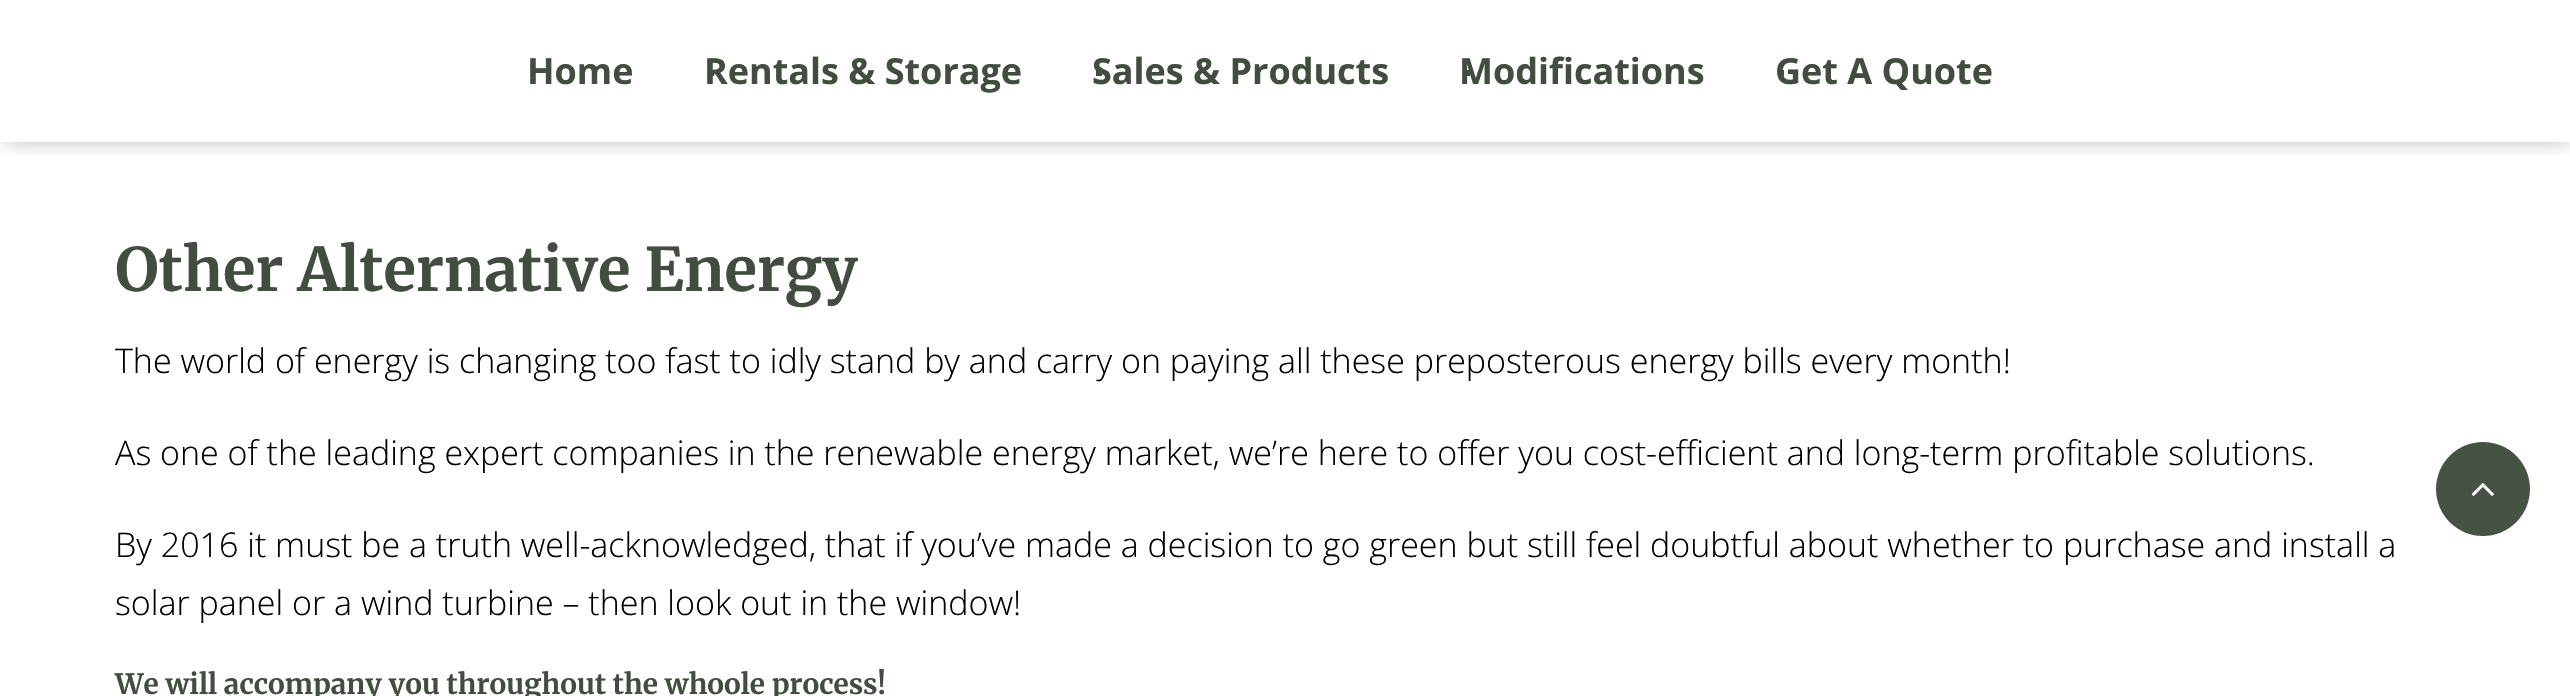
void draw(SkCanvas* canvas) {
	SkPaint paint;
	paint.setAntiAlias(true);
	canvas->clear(0xffffffff);
	canvas->save();
	canvas->clipRect(SkRect::MakeXYWH(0, 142, 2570, 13));
	paint.setColor(0x4d000000);
	paint.setMaskFilter(SkMaskFilter::MakeBlur(kNormal_SkBlurStyle, 10));
	canvas->drawRect(SkRect::MakeXYWH(4, 2, 2566, 138), paint);
	paint.setMaskFilter(nullptr);
	canvas->restore();
	SkFont f1(fontMgr->matchFamilyStyle("Open Sans", SkFontStyle::Bold()), 36);
	f1.setSubpixel(true);
	paint.setColor(0xff414d3e);
	canvas->drawString("Home", 527, 84, f1, paint);
	canvas->drawRect(SkRect::MakeXYWH(708, 70, 6, 6), paint);
	canvas->drawString("Rentals & Storage", 704, 84, f1, paint);
	canvas->drawRect(SkRect::MakeXYWH(1096, 70, 6, 6), paint);
	canvas->drawString("Sales & Products", 1092, 84, f1, paint);
	canvas->drawRect(SkRect::MakeXYWH(1464, 70, 6, 6), paint);
	canvas->drawString("Modifications", 1459, 84, f1, paint);
	canvas->drawRect(SkRect::MakeXYWH(1778, 70, 6, 6), paint);
	canvas->drawString("Get A Quote", 1775, 84, f1, paint);
	SkFont f2(fontMgr->matchFamilyStyle("Merriweather", SkFontStyle(300, SkFontStyle::kNormal_Width, SkFontStyle::kUpright_Slant)), 60);
	f2.setSubpixel(true);
	canvas->drawString("Other Alternative Energy", 115, 291, f2, paint);
	SkFont f3(fontMgr->matchFamilyStyle("Open Sans", SkFontStyle(300, SkFontStyle::kNormal_Width, SkFontStyle::kUpright_Slant)), 34);
	f3.setSubpixel(true);
	paint.setColor(0xff000000);
	canvas->drawString("The world of energy is changing too fast to idly stand by and carry on paying all these preposterous energy bills every month!", 115, 373, f3, paint);
	canvas->drawString("As one of the leading expert companies in the renewable energy market, we’re here to offer you cost-efficient and long-term profitable solutions.", 115, 465, f3, paint);
	canvas->drawString("By 2016 it must be a truth well-acknowledged, that if you’ve made a decision to go green but still feel doubtful about whether to purchase and install a", 115, 557, f3, paint);
	canvas->drawString("solar panel or a wind turbine – then look out in the window!", 115, 615, f3, paint);
	SkFont f4(fontMgr->matchFamilyStyle("Merriweather", SkFontStyle(300, SkFontStyle::kNormal_Width, SkFontStyle::kUpright_Slant)), 28);
	f4.setSubpixel(true);
	paint.setColor(0xff414d3e);
	canvas->drawString("We will accompany you throughout the whoole process!", 115, 694, f4, paint);
	paint.setColor(0xff465243);
	canvas->drawCircle(2483, 489, 47, paint);
	canvas->drawImageRect(SkImages::DeferredFromEncodedData(SkData::MakeFromFileName("img1.png")), SkRect::MakeXYWH(2471, 483, 23, 13), SkSamplingOptions());
}
